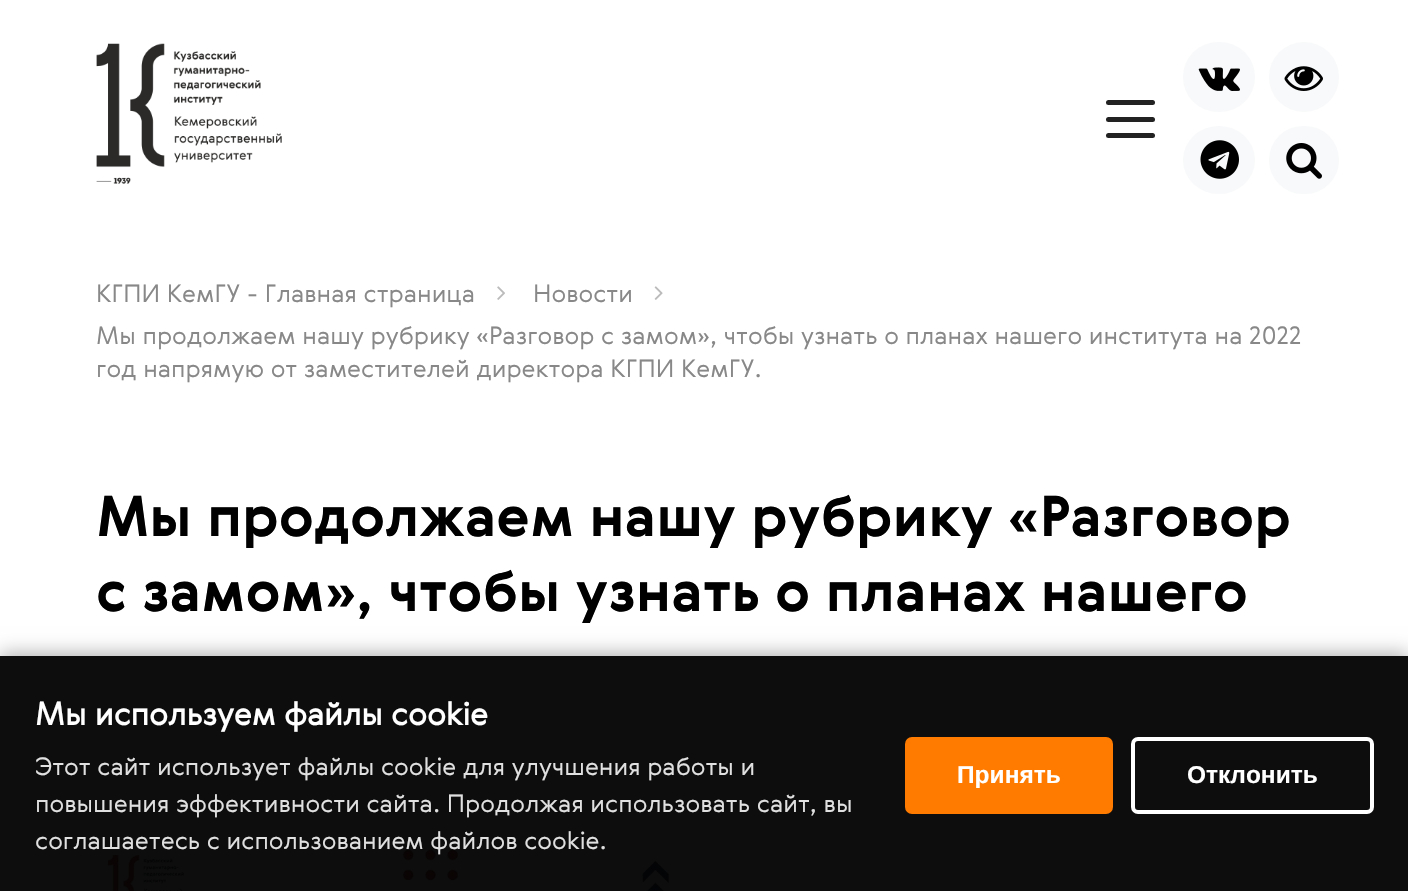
void draw(SkCanvas* canvas) {
	SkPaint paint;
	paint.setAntiAlias(true);
	auto svgPath = [&](const char* data, bool evenOdd = false) {
		SkPath result = *SkParsePath::FromSVGString(data);
		if (evenOdd) result.setFillType(SkPathFillType::kEvenOdd);
		return result;
	};
	canvas->clear(0xffffffff);
	canvas->drawImageRect(SkImages::DeferredFromEncodedData(SkData::MakeFromFileName("img1.png")), SkRect::MakeXYWH(96, 43, 186, 141), SkSamplingOptions());
	paint.setColor(0xff222222);
	canvas->drawRoundRect(SkRect::MakeXYWH(1106, 100, 49, 5), 2.5, 2.5, paint);
	canvas->drawRoundRect(SkRect::MakeXYWH(1106, 117, 49, 5), 2.5, 2.5, paint);
	canvas->drawRoundRect(SkRect::MakeXYWH(1106, 133, 49, 5), 2.5, 2.5, paint);
	paint.setColor(0xfff8f9fa);
	canvas->drawRoundRect(SkRect::MakeXYWH(1183, 42, 72, 70), 35, 35, paint);
	canvas->drawImageRect(SkImages::DeferredFromEncodedData(SkData::MakeFromFileName("img2.png")), SkRect::MakeXYWH(1198, 67, 42, 24), SkSamplingOptions());
	canvas->drawOval(SkRect::MakeXYWH(1183, 126, 72, 68), paint);
	canvas->drawImageRect(SkImages::DeferredFromEncodedData(SkData::MakeFromFileName("img3.png")), SkRect::MakeXYWH(1200, 140, 39, 39), SkSamplingOptions());
	canvas->drawCircle(1304, 77, 35, paint);
	canvas->drawImageRect(SkImages::DeferredFromEncodedData(SkData::MakeFromFileName("img4.png")), SkRect::MakeXYWH(1284, 66, 39, 25), SkSamplingOptions());
	canvas->drawRoundRect(SkRect::MakeXYWH(1269, 126, 70, 68), 34, 34, paint);
	canvas->drawImageRect(SkImages::DeferredFromEncodedData(SkData::MakeFromFileName("img5.png")), SkRect::MakeXYWH(1286, 143, 36, 36), SkSamplingOptions());
	SkFont f1(fontMgr->matchFamilyStyle("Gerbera", SkFontStyle(300, SkFontStyle::kNormal_Width, SkFontStyle::kUpright_Slant)), 24.5);
	f1.setSubpixel(true);
	paint.setColor(0xff888888);
	canvas->drawString("КГПИ КемГУ - Главная страница", 96, 302, f1, paint);
	canvas->drawImageRect(SkImages::DeferredFromEncodedData(SkData::MakeFromFileName("img6.png")), SkRect::MakeXYWH(497, 286, 8, 14), SkSamplingOptions());
	canvas->drawString("Новости", 533, 302, f1, paint);
	canvas->drawImageRect(SkImages::DeferredFromEncodedData(SkData::MakeFromFileName("img7.png")), SkRect::MakeXYWH(654, 286, 9, 14), SkSamplingOptions());
	canvas->drawString("Мы продолжаем нашу рубрику «Разговор с замом», чтобы узнать о планах нашего института на 2022", 96, 344, f1, paint);
	canvas->drawString("год напрямую от заместителей директора КГПИ КемГУ.", 96, 377, f1, paint);
	SkFont f2(fontMgr->matchFamilyStyle("Gerbera", SkFontStyle::Bold()), 56);
	f2.setSubpixel(true);
	paint.setColor(0xff000000);
	canvas->drawString("Мы продолжаем нашу рубрику «Разговор", 96, 536, f2, paint);
	canvas->drawString("с замом», чтобы узнать о планах нашего", 96, 611, f2, paint);
	canvas->drawImageRect(SkImages::DeferredFromEncodedData(SkData::MakeFromFileName("img8.png")), SkRect::MakeXYWH(107, 844, 572, 47), SkSamplingOptions());
	canvas->save();
	canvas->clipPath(svgPath("M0 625H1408V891H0ZM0 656H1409V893H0Z", true), true);
	paint.setColor(0x4d000000);
	paint.setMaskFilter(SkMaskFilter::MakeBlur(kNormal_SkBlurStyle, 9));
	canvas->drawRect(SkRect::MakeXYWH(0, 653, 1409, 236), paint);
	paint.setMaskFilter(nullptr);
	canvas->restore();
	paint.setColor(0xf2000000);
	canvas->drawRect(SkRect::MakeXYWH(0, 656, 1408, 235), paint);
	SkFont f3(fontMgr->matchFamilyStyle("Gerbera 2", SkFontStyle::Bold()), 31.5);
	f3.setSubpixel(true);
	paint.setColor(0xffffffff);
	canvas->drawString("Мы используем файлы cookie", 35, 725, f3, paint);
	paint.setColor(0xffe0e0e0);
	canvas->drawString("Этот сайт использует файлы cookie для улучшения работы и", 35, 775, f1, paint);
	canvas->drawString("повышения эффективности сайта. Продолжая использовать сайт, вы", 35, 812, f1, paint);
	canvas->drawString("соглашаетесь с использованием файлов cookie.", 35, 849, f1, paint);
	paint.setColor(0xffff7b00);
	canvas->drawRoundRect(SkRect::MakeXYWH(905, 737, 208, 77), 7, 7, paint);
	SkFont f4(fontMgr->matchFamilyStyle("Liberation Sans", SkFontStyle::Bold()), 24.5);
	f4.setSubpixel(true);
	paint.setColor(0xffffffff);
	canvas->drawString("Принять", 957, 783, f4, paint);
	paint.setStroke(true);
	paint.setStrokeWidth(4);
	canvas->drawRoundRect(SkRect::MakeXYWH(1133, 739, 239, 73), 5, 5, paint);
	paint.setStroke(false);
	canvas->drawString("Отклонить", 1187, 783, f4, paint);
}
